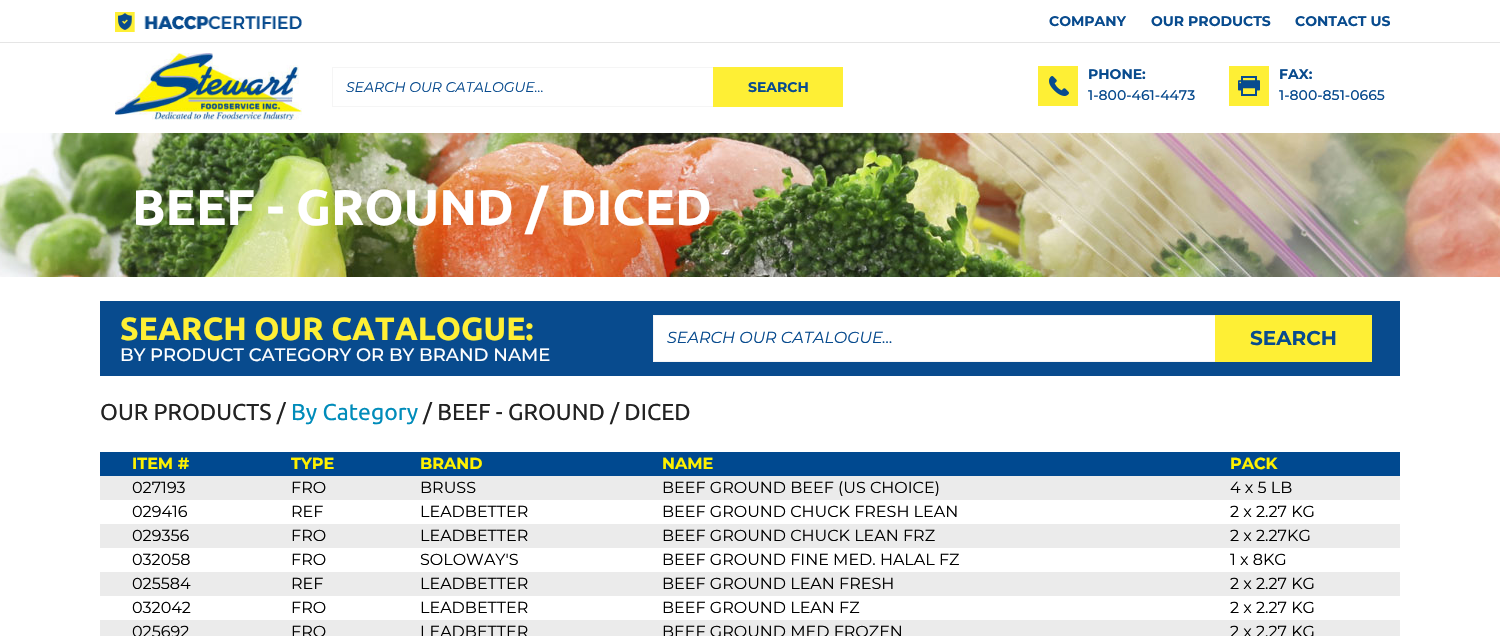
void draw(SkCanvas* canvas) {
	SkPaint paint;
	paint.setAntiAlias(true);
	canvas->clear(0xffffffff);
	paint.setColor(0xffe5e5e5);
	canvas->drawRect(SkRect::MakeXYWH(0, 42, 1500, 1), paint);
	canvas->drawImageRect(SkImages::DeferredFromEncodedData(SkData::MakeFromFileName("img1.png")), SkRect::MakeXYWH(115, 12, 187, 20), SkSamplingOptions());
	SkFont f1(fontMgr->matchFamilyStyle("Montserrat", SkFontStyle::Bold()), 14);
	f1.setSubpixel(true);
	paint.setColor(0xff084b8e);
	canvas->drawString("COMPANY", 1049, 26, f1, paint);
	canvas->drawString("OUR PRODUCTS", 1151, 26, f1, paint);
	canvas->drawString("CONTACT US", 1295, 26, f1, paint);
	canvas->drawImageRect(SkImages::DeferredFromEncodedData(SkData::MakeFromFileName("img2.png")), SkRect::MakeXYWH(115, 53, 187, 67), SkSamplingOptions());
	paint.setStroke(true);
	paint.setStrokeWidth(1);
	paint.setColor(0xfff5f5f5);
	canvas->drawRect(SkRect::MakeXYWH(332.5, 67.5, 510, 39), paint);
	SkFont f2(fontMgr->matchFamilyStyle("Montserrat", SkFontStyle::Italic()), 14);
	f2.setSubpixel(true);
	paint.setStroke(false);
	paint.setColor(0xff084b8e);
	canvas->drawString("SEARCH OUR CATALOGUE…", 346, 92, f2, paint);
	paint.setColor(0xfffeef35);
	canvas->drawRect(SkRect::MakeXYWH(713, 67, 130, 40), paint);
	paint.setColor(0xff084b8e);
	canvas->drawString("SEARCH", 748, 92, f1, paint);
	paint.setColor(0xfffeef35);
	canvas->drawRect(SkRect::MakeXYWH(1038, 66, 40, 40), paint);
	canvas->drawImageRect(SkImages::DeferredFromEncodedData(SkData::MakeFromFileName("img3.png")), SkRect::MakeXYWH(1049, 76, 20, 20), SkSamplingOptions());
	paint.setColor(0xff084b8e);
	canvas->drawString("PHONE:", 1088, 79, f1, paint);
	SkFont f3(fontMgr->matchFamilyStyle("Montserrat", SkFontStyle(500, SkFontStyle::kNormal_Width, SkFontStyle::kUpright_Slant)), 14);
	f3.setSubpixel(true);
	canvas->drawString("1-800-461-4473", 1088, 100, f3, paint);
	paint.setColor(0xfffeef35);
	canvas->drawRect(SkRect::MakeXYWH(1229, 66, 40, 40), paint);
	canvas->drawImageRect(SkImages::DeferredFromEncodedData(SkData::MakeFromFileName("img4.png")), SkRect::MakeXYWH(1238, 76, 22, 20), SkSamplingOptions());
	paint.setColor(0xff084b8e);
	canvas->drawString("FAX:", 1279, 79, f1, paint);
	canvas->drawString("1-800-851-0665", 1279, 100, f3, paint);
	canvas->drawImageRect(SkImages::DeferredFromEncodedData(SkData::MakeFromFileName("img5.png")), SkRect::MakeXYWH(0, 133, 1500, 144), SkSamplingOptions());
	SkFont f4(fontMgr->matchFamilyStyle("Ubuntu", SkFontStyle::Bold()), 50);
	f4.setSubpixel(true);
	paint.setColor(0xffffffff);
	canvas->drawString("BEEF - GROUND / DICED", 132, 225, f4, paint);
	paint.setColor(0xff084b8e);
	canvas->drawRect(SkRect::MakeXYWH(100, 301, 1300, 75), paint);
	SkFont f5(fontMgr->matchFamilyStyle("Ubuntu", SkFontStyle::Bold()), 32);
	f5.setSubpixel(true);
	paint.setColor(0xfffeef35);
	canvas->drawString("SEARCH OUR CATALOGUE:", 120, 340, f5, paint);
	SkFont f6(fontMgr->matchFamilyStyle("Montserrat", SkFontStyle(500, SkFontStyle::kNormal_Width, SkFontStyle::kUpright_Slant)), 18);
	f6.setSubpixel(true);
	paint.setColor(0xffffffff);
	canvas->drawString("BY PRODUCT CATEGORY OR BY BRAND NAME", 120, 361, f6, paint);
	canvas->drawRect(SkRect::MakeXYWH(654, 316, 561, 45), paint);
	paint.setStroke(true);
	paint.setColor(0xfff5f5f5);
	canvas->drawRect(SkRect::MakeXYWH(653.5, 315.5, 718, 46), paint);
	SkFont f7(fontMgr->matchFamilyStyle("Montserrat", SkFontStyle::Italic()), 16);
	f7.setSubpixel(true);
	paint.setStroke(false);
	paint.setColor(0xff084b8e);
	canvas->drawString("SEARCH OUR CATALOGUE…", 667, 343, f7, paint);
	paint.setColor(0xfffeef35);
	canvas->drawRect(SkRect::MakeXYWH(1215, 315, 157, 47), paint);
	SkFont f8(fontMgr->matchFamilyStyle("Montserrat", SkFontStyle::Bold()), 20);
	f8.setSubpixel(true);
	paint.setColor(0xff084b8e);
	canvas->drawString("SEARCH", 1250, 345, f8, paint);
	SkFont f9(fontMgr->matchFamilyStyle("Ubuntu", SkFontStyle::Normal()), 23);
	f9.setSubpixel(true);
	paint.setColor(0xff222222);
	canvas->drawString("OUR PRODUCTS /", 100, 420, f9, paint);
	paint.setColor(0xff008cba);
	canvas->drawString("By Category", 291, 420, f9, paint);
	paint.setColor(0xff222222);
	canvas->drawString("/ BEEF - GROUND / DICED", 423, 420, f9, paint);
	paint.setColor(0xff004990);
	canvas->drawRect(SkRect::MakeXYWH(100, 452, 1300, 24), paint);
	SkFont f10(fontMgr->matchFamilyStyle("Montserrat", SkFontStyle::Bold()), 16);
	f10.setSubpixel(true);
	paint.setColor(0xfffff100);
	canvas->drawString("ITEM #", 132, 469, f10, paint);
	canvas->drawString("TYPE", 291, 469, f10, paint);
	canvas->drawString("BRAND", 420, 469, f10, paint);
	canvas->drawString("NAME", 662, 469, f10, paint);
	canvas->drawString("PACK", 1230, 469, f10, paint);
	paint.setColor(0xffebebeb);
	canvas->drawRect(SkRect::MakeXYWH(100, 476, 1300, 24), paint);
	SkFont f11(fontMgr->matchFamilyStyle("Montserrat", SkFontStyle::Normal()), 16);
	f11.setSubpixel(true);
	paint.setColor(0xff000000);
	canvas->drawString("027193", 132, 493, f11, paint);
	canvas->drawString("FRO", 291, 493, f11, paint);
	canvas->drawString("BRUSS", 420, 493, f11, paint);
	canvas->drawString("BEEF GROUND BEEF (US CHOICE)", 662, 493, f11, paint);
	canvas->drawString("4 x 5 LB", 1230, 493, f11, paint);
	canvas->drawString("029416", 132, 517, f11, paint);
	canvas->drawString("REF", 291, 517, f11, paint);
	canvas->drawString("LEADBETTER", 420, 517, f11, paint);
	canvas->drawString("BEEF GROUND CHUCK FRESH LEAN", 662, 517, f11, paint);
	canvas->drawString("2 x 2.27 KG", 1230, 517, f11, paint);
	paint.setColor(0xffebebeb);
	canvas->drawRect(SkRect::MakeXYWH(100, 524, 1300, 24), paint);
	paint.setColor(0xff000000);
	canvas->drawString("029356", 132, 541, f11, paint);
	canvas->drawString("FRO", 291, 541, f11, paint);
	canvas->drawString("LEADBETTER", 420, 541, f11, paint);
	canvas->drawString("BEEF GROUND CHUCK LEAN FRZ", 662, 541, f11, paint);
	canvas->drawString("2 x 2.27KG", 1230, 541, f11, paint);
	canvas->drawString("032058", 132, 565, f11, paint);
	canvas->drawString("FRO", 291, 565, f11, paint);
	canvas->drawString("SOLOWAY'S", 420, 565, f11, paint);
	canvas->drawString("BEEF GROUND FINE MED. HALAL FZ", 662, 565, f11, paint);
	canvas->drawString("1 x 8KG", 1230, 565, f11, paint);
	paint.setColor(0xffebebeb);
	canvas->drawRect(SkRect::MakeXYWH(100, 572, 1300, 24), paint);
	paint.setColor(0xff000000);
	canvas->drawString("025584", 132, 589, f11, paint);
	canvas->drawString("REF", 291, 589, f11, paint);
	canvas->drawString("LEADBETTER", 420, 589, f11, paint);
	canvas->drawString("BEEF GROUND LEAN FRESH", 662, 589, f11, paint);
	canvas->drawString("2 x 2.27 KG", 1230, 589, f11, paint);
	canvas->drawString("032042", 132, 613, f11, paint);
	canvas->drawString("FRO", 291, 613, f11, paint);
	canvas->drawString("LEADBETTER", 420, 613, f11, paint);
	canvas->drawString("BEEF GROUND LEAN FZ", 662, 613, f11, paint);
	canvas->drawString("2 x 2.27 KG", 1230, 613, f11, paint);
	paint.setColor(0xffebebeb);
	canvas->drawRect(SkRect::MakeXYWH(100, 620, 1300, 16), paint);
	paint.setColor(0xff000000);
	canvas->drawString("025692", 132, 637, f11, paint);
	canvas->drawString("FRO", 291, 637, f11, paint);
	canvas->drawString("LEADBETTER", 420, 637, f11, paint);
	canvas->drawString("BEEF GROUND MED FROZEN", 662, 637, f11, paint);
	canvas->drawString("2 x 2.27 KG", 1230, 637, f11, paint);
}
